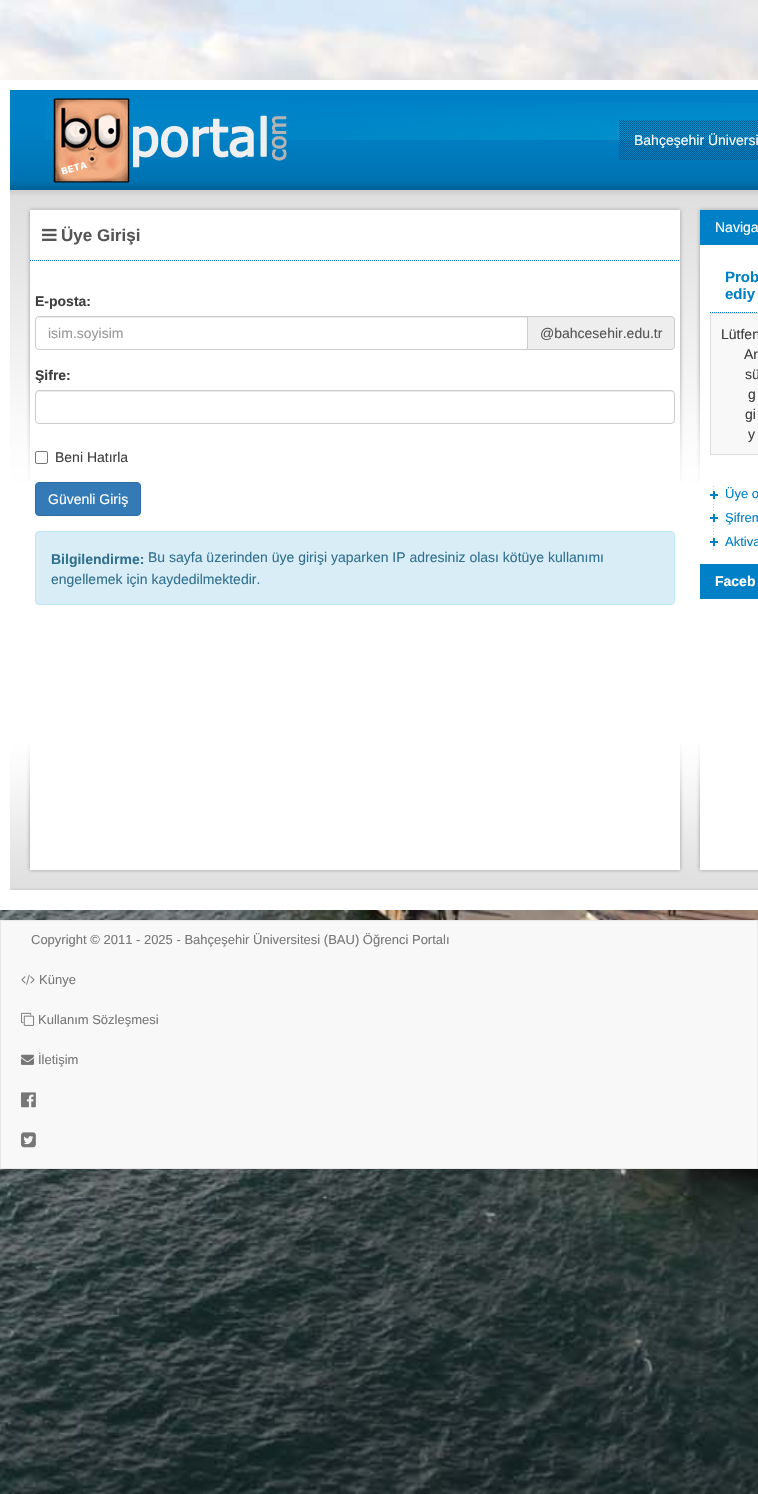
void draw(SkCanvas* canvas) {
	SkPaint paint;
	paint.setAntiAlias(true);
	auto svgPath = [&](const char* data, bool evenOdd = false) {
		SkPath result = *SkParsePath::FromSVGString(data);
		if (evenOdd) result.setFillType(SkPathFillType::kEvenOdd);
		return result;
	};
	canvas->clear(0xffffffff);
	canvas->drawImageRect(SkImages::DeferredFromEncodedData(SkData::MakeFromFileName("img1.png")), SkRect::MakeXYWH(0, 0, 758, 1494), SkSamplingOptions());
	paint.setColor(0xffffffff);
	canvas->drawRect(SkRect::MakeXYWH(0, 80, 758, 830), paint);
	paint.setColor(0xff0081c7);
	canvas->drawRect(SkRect::MakeXYWH(10, 90, 748, 13), paint);
	canvas->drawImageRect(SkImages::DeferredFromEncodedData(SkData::MakeFromFileName("img2.png")), SkRect::MakeXYWH(10, 103, 748, 87), SkSamplingOptions());
	canvas->drawImageRect(SkImages::DeferredFromEncodedData(SkData::MakeFromFileName("img3.png")), SkRect::MakeXYWH(45, 98, 242, 85), SkSamplingOptions());
	canvas->drawImageRect(SkImages::DeferredFromEncodedData(SkData::MakeFromFileName("img4.png")), SkRect::MakeXYWH(619, 120, 139, 40), SkSamplingOptions());
	SkFont f1(fontMgr->matchFamilyStyle("Liberation Sans", SkFontStyle::Normal()), 14);
	f1.setSubpixel(true);
	paint.setColor(0xffffffff);
	canvas->drawString("Bahçeşehir Üniversi", 634, 145, f1, paint);
	canvas->drawImageRect(SkImages::DeferredFromEncodedData(SkData::MakeFromFileName("img5.png")), SkRect::MakeXYWH(10, 190, 748, 292), SkSamplingOptions());
	canvas->drawImageRect(SkImages::DeferredFromEncodedData(SkData::MakeFromFileName("img6.png")), SkRect::MakeXYWH(10, 744, 748, 146), SkSamplingOptions());
	paint.setStroke(true);
	paint.setStrokeWidth(1);
	paint.setColor(0xff0081c7);
	paint.setPathEffect(SkDashPathEffect::Make({{1, 1}}, 0));
	canvas->drawPath(svgPath("M30 260.5H680"), paint);
	paint.setPathEffect(nullptr);
	canvas->drawImageRect(SkImages::DeferredFromEncodedData(SkData::MakeFromFileName("img7.png")), SkRect::MakeXYWH(42, 228, 15, 13), SkSamplingOptions());
	SkFont f2(fontMgr->matchFamilyStyle("Liberation Sans", SkFontStyle::Bold()), 17);
	f2.setSubpixel(true);
	paint.setStroke(false);
	paint.setColor(0xff555555);
	canvas->drawString("Üye Girişi", 61, 241, f2, paint);
	SkFont f3(fontMgr->matchFamilyStyle("Liberation Sans", SkFontStyle::Bold()), 14);
	f3.setSubpixel(true);
	paint.setColor(0xff3f3f3f);
	canvas->drawString("E-posta:", 35, 306, f3, paint);
	paint.setColor(0xffececec);
	canvas->drawPath(svgPath("M39 318H527V317H39C37 317 36 319 36 321C36 319 37 318 39 318Z"), paint);
	paint.setStroke(true);
	paint.setColor(0xffcccccc);
	canvas->drawPath(svgPath("M39 316.5H527.5V349.5H39C37 349.5 35.5 348 35.5 346V320C35.5 318 37 316.5 39 316.5Z"), paint);
	paint.setStroke(false);
	paint.setColor(0xff999999);
	canvas->drawString("isim.soyisim", 48, 338, f1, paint);
	paint.setColor(0xffeeeeee);
	canvas->drawPath(svgPath("M528 316H671C673 316 675 318 675 320V346C675 348 673 350 671 350H528Z"), paint);
	paint.setColor(0xffcccccc);
	canvas->drawPath(svgPath("M528 316H671C673 316 675 318 675 320V346C675 348 673 350 671 350H528ZM528 317H671C673 317 674 318 674 320V346C674 348 673 349 671 349H528Z", true), paint);
	paint.setColor(0xff555555);
	canvas->drawString("@bahcesehir.edu.tr", 540, 338, f1, paint);
	paint.setColor(0xff3f3f3f);
	canvas->drawString("Şifre:", 35, 380, f3, paint);
	paint.setColor(0xffececec);
	canvas->drawPath(svgPath("M39 392H671C673 392 674 393 674 395V394C674 392 673 391 671 391H39C37 391 36 392 36 394V395C36 393 37 392 39 392Z"), paint);
	paint.setStroke(true);
	paint.setColor(0xffcccccc);
	canvas->drawRoundRect(SkRect::MakeXYWH(35.5, 390.5, 639, 33), 3.5, 3.5, paint);
	paint.setColor(0xff767676);
	canvas->drawRoundRect(SkRect::MakeXYWH(35.5, 451.5, 12, 12), 1.5, 1.5, paint);
	paint.setStroke(false);
	paint.setColor(0xff3f3f3f);
	canvas->drawString("Beni Hatırla", 55, 462, f1, paint);
	paint.setColor(0xff337ab7);
	canvas->drawRoundRect(SkRect::MakeXYWH(35.5, 482.5, 105, 33), 3.5, 3.5, paint);
	paint.setStroke(true);
	paint.setColor(0xff2e6da4);
	canvas->drawRoundRect(SkRect::MakeXYWH(35.5, 482.5, 105, 33), 3.5, 3.5, paint);
	paint.setStroke(false);
	paint.setColor(0xffffffff);
	canvas->drawString("Güvenli Giriş", 48, 504, f1, paint);
	paint.setColor(0xffd9edf7);
	canvas->drawRoundRect(SkRect::MakeXYWH(35.5, 531.5, 639, 73), 3.5, 3.5, paint);
	paint.setStroke(true);
	paint.setColor(0xffbce8f1);
	canvas->drawRoundRect(SkRect::MakeXYWH(35.5, 531.5, 639, 73), 3.5, 3.5, paint);
	paint.setStroke(false);
	paint.setColor(0xff31708f);
	canvas->drawString("Bilgilendirme:", 51, 564, f3, paint);
	canvas->drawString("Bu sayfa üzerinden üye girişi yaparken IP adresiniz olası kötüye kullanımı", 148, 562, f1, paint);
	canvas->drawString("engellemek için kaydedilmektedir.", 51, 584, f1, paint);
	paint.setColor(0xff0081c7);
	canvas->drawRect(SkRect::MakeXYWH(700, 210, 58, 35), paint);
	paint.setColor(0xffffffff);
	canvas->drawString("Naviga", 715, 232, f1, paint);
	paint.setStroke(true);
	paint.setColor(0xff0081c7);
	paint.setPathEffect(SkDashPathEffect::Make({{1, 1}}, 0));
	canvas->drawPath(svgPath("M710 312.5H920"), paint);
	paint.setPathEffect(nullptr);
	SkFont f4(fontMgr->matchFamilyStyle("Liberation Sans", SkFontStyle::Bold()), 15);
	f4.setSubpixel(true);
	paint.setStroke(false);
	canvas->drawString("Prob", 725, 282, f4, paint);
	canvas->drawString("ediy", 725, 299, f4, paint);
	paint.setColor(0xfff8f8f8);
	canvas->drawRect(SkRect::MakeXYWH(710.5, 313.5, 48, 141), paint);
	paint.setStroke(true);
	paint.setColor(0xffdedede);
	canvas->drawRect(SkRect::MakeXYWH(710.5, 313.5, 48, 141), paint);
	paint.setStroke(false);
	paint.setColor(0xff3f3f3f);
	canvas->drawString("Lütfen", 721, 339, f1, paint);
	canvas->drawString("Ar", 744, 359, f1, paint);
	canvas->drawString("sü", 745, 379, f1, paint);
	canvas->drawString("g", 748, 399, f1, paint);
	canvas->drawString("gi", 745, 419, f1, paint);
	canvas->drawString("y", 748, 439, f1, paint);
	canvas->drawImageRect(SkImages::DeferredFromEncodedData(SkData::MakeFromFileName("img8.png")), SkRect::MakeXYWH(713, 486, 1, 64), SkSamplingOptions());
	canvas->drawImageRect(SkImages::DeferredFromEncodedData(SkData::MakeFromFileName("img9.png")), SkRect::MakeXYWH(710, 491, 8, 8), SkSamplingOptions());
	SkFont f5(fontMgr->matchFamilyStyle("Liberation Sans", SkFontStyle::Normal()), 13);
	f5.setSubpixel(true);
	paint.setColor(0xff0081c7);
	canvas->drawString("Üye o", 725, 498, f5, paint);
	canvas->drawImageRect(SkImages::DeferredFromEncodedData(SkData::MakeFromFileName("img9.png")), SkRect::MakeXYWH(710, 514, 8, 8), SkSamplingOptions());
	canvas->drawString("Şifrem", 725, 522, f5, paint);
	canvas->drawImageRect(SkImages::DeferredFromEncodedData(SkData::MakeFromFileName("img9.png")), SkRect::MakeXYWH(710, 538, 8, 8), SkSamplingOptions());
	canvas->drawString("Aktiva", 725, 546, f5, paint);
	canvas->drawRect(SkRect::MakeXYWH(700, 564, 58, 35), paint);
	paint.setColor(0xffffffff);
	canvas->drawString("Faceb", 715, 586, f3, paint);
	paint.setColor(0xfff8f8f8);
	canvas->drawRect(SkRect::MakeXYWH(0.5, 920.5, 757, 248), paint);
	paint.setStroke(true);
	paint.setColor(0xffe7e7e7);
	canvas->drawRect(SkRect::MakeXYWH(0.5, 920.5, 757, 248), paint);
	paint.setStroke(false);
	paint.setColor(0xff777777);
	canvas->drawString("Copyright © 2011 - 2025 - Bahçeşehir Üniversitesi (BAU) Öğrenci Portalı", 31, 944, f5, paint);
	canvas->drawImageRect(SkImages::DeferredFromEncodedData(SkData::MakeFromFileName("img10.png")), SkRect::MakeXYWH(21, 974, 14, 11), SkSamplingOptions());
	canvas->drawString("Künye", 39, 984, f5, paint);
	canvas->drawImageRect(SkImages::DeferredFromEncodedData(SkData::MakeFromFileName("img11.png")), SkRect::MakeXYWH(21, 1012, 13, 14), SkSamplingOptions());
	canvas->drawString("Kullanım Sözleşmesi", 38, 1024, f5, paint);
	canvas->drawImageRect(SkImages::DeferredFromEncodedData(SkData::MakeFromFileName("img12.png")), SkRect::MakeXYWH(21, 1054, 13, 11), SkSamplingOptions());
	canvas->drawString("İletişim", 38, 1064, f5, paint);
	canvas->drawImageRect(SkImages::DeferredFromEncodedData(SkData::MakeFromFileName("img13.png")), SkRect::MakeXYWH(21, 1092, 15, 16), SkSamplingOptions());
	canvas->drawImageRect(SkImages::DeferredFromEncodedData(SkData::MakeFromFileName("img14.png")), SkRect::MakeXYWH(21, 1132, 15, 16), SkSamplingOptions());
}
